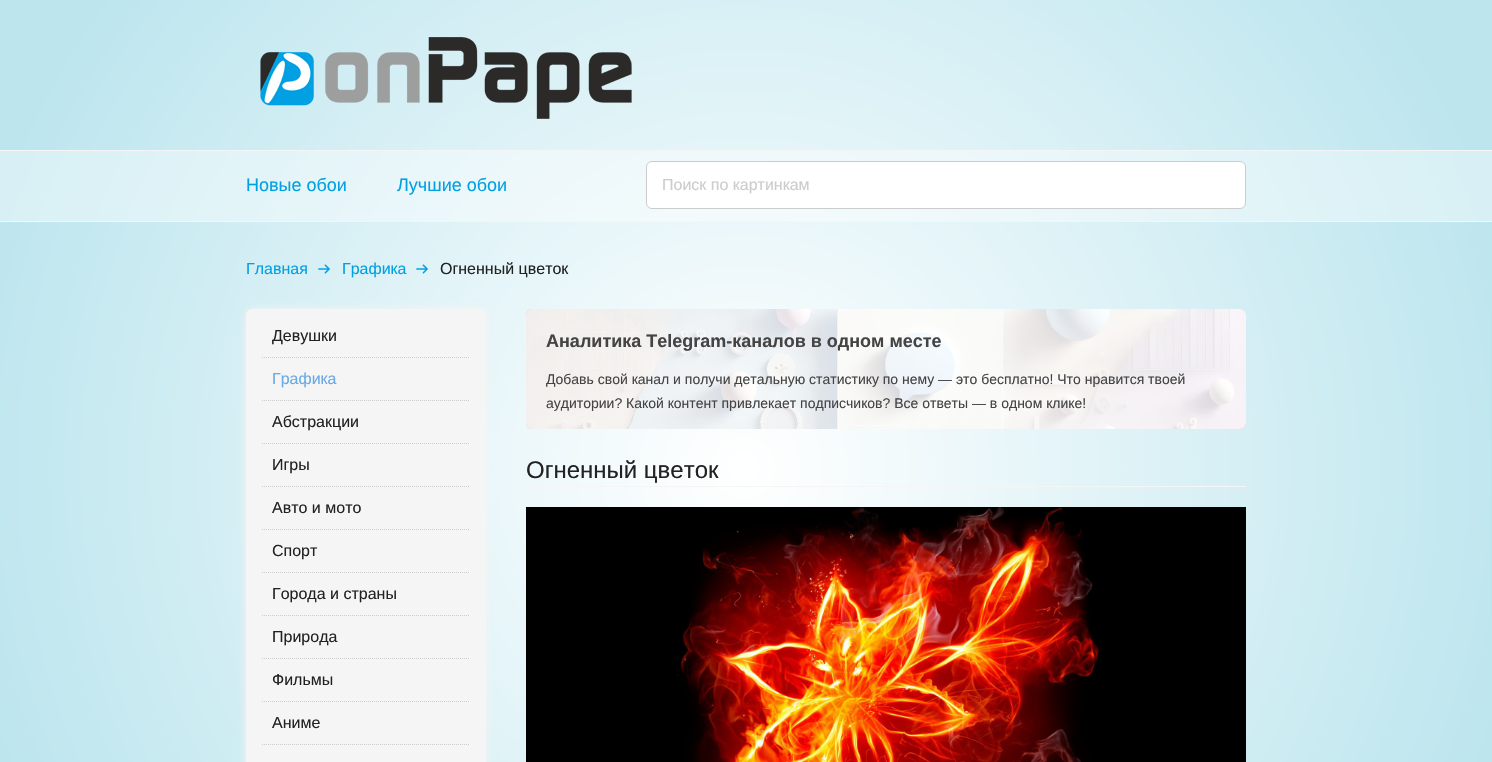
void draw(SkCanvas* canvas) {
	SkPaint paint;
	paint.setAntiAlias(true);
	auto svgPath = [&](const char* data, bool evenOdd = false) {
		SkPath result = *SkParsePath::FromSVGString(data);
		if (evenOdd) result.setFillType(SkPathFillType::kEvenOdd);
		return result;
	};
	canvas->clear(0xffbce5ee);
	canvas->drawImageRect(SkImages::DeferredFromEncodedData(SkData::MakeFromFileName("img1.png")), SkRect::MakeXYWH(0, 0, 1491, 762), SkSamplingOptions());
	canvas->drawImageRect(SkImages::DeferredFromEncodedData(SkData::MakeFromFileName("img2.png")), SkRect::MakeXYWH(260, 37, 372, 82), SkSamplingOptions());
	paint.setColor(0x66ffffff);
	canvas->drawRect(SkRect::MakeXYWH(0, 151, 1492, 70), paint);
	paint.setColor(0xfff5f5f5);
	canvas->drawRect(SkRect::MakeXYWH(0, 150, 1492, 1), paint);
	canvas->drawRect(SkRect::MakeXYWH(0, 221, 1492, 1), paint);
	SkFont f1(fontMgr->matchFamilyStyle("Liberation Sans", SkFontStyle::Normal()), 18);
	f1.setSubpixel(true);
	paint.setColor(0xff00a0e3);
	canvas->drawString("Новые обои", 246, 191, f1, paint);
	canvas->drawString("Лучшие обои", 397, 191, f1, paint);
	paint.setColor(0xffffffff);
	canvas->drawRoundRect(SkRect::MakeXYWH(646.5, 161.5, 599, 47), 5.5, 5.5, paint);
	paint.setStroke(true);
	paint.setStrokeWidth(1);
	paint.setColor(0xffcccccc);
	canvas->drawRoundRect(SkRect::MakeXYWH(646.5, 161.5, 599, 47), 5.5, 5.5, paint);
	SkFont f2(fontMgr->matchFamilyStyle("Liberation Sans", SkFontStyle::Normal()), 16);
	f2.setSubpixel(true);
	paint.setStroke(false);
	canvas->drawString("Поиск по картинкам", 662, 190, f2, paint);
	paint.setColor(0xff00a0e3);
	canvas->drawString("Главная", 246, 274, f2, paint);
	canvas->drawImageRect(SkImages::DeferredFromEncodedData(SkData::MakeFromFileName("img3.png")), SkRect::MakeXYWH(318, 264, 12, 10), SkSamplingOptions());
	canvas->drawString("Графика", 342, 274, f2, paint);
	canvas->drawImageRect(SkImages::DeferredFromEncodedData(SkData::MakeFromFileName("img4.png")), SkRect::MakeXYWH(416, 264, 12, 10), SkSamplingOptions());
	paint.setColor(0xff222222);
	canvas->drawString("Огненный цветок", 440, 274, f2, paint);
	paint.setColor(0xfff5f5f5);
	paint.setMaskFilter(SkMaskFilter::MakeBlur(kNormal_SkBlurStyle, 5));
	canvas->drawRoundRect(SkRect::MakeXYWH(246, 309, 240, 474), 6, 6, paint);
	paint.setMaskFilter(nullptr);
	canvas->drawRoundRect(SkRect::MakeXYWH(246.5, 309.5, 239, 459), 5.5, 5.5, paint);
	paint.setStroke(true);
	canvas->drawRoundRect(SkRect::MakeXYWH(246.5, 309.5, 239, 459), 5.5, 5.5, paint);
	paint.setColor(0xffcccccc);
	paint.setPathEffect(SkDashPathEffect::Make({{1, 1}}, 0));
	canvas->drawPath(svgPath("M262 357.5H470"), paint);
	paint.setPathEffect(nullptr);
	paint.setStroke(false);
	paint.setColor(0xff222222);
	canvas->drawString("Девушки", 272, 341, f2, paint);
	paint.setStroke(true);
	paint.setColor(0xffcccccc);
	paint.setPathEffect(SkDashPathEffect::Make({{1, 1}}, 0));
	canvas->drawPath(svgPath("M262 400.5H470"), paint);
	paint.setPathEffect(nullptr);
	paint.setStroke(false);
	paint.setColor(0xff69a9e5);
	canvas->drawString("Графика", 272, 384, f2, paint);
	paint.setStroke(true);
	paint.setColor(0xffcccccc);
	paint.setPathEffect(SkDashPathEffect::Make({{1, 1}}, 0));
	canvas->drawPath(svgPath("M262 443.5H470"), paint);
	paint.setPathEffect(nullptr);
	paint.setStroke(false);
	paint.setColor(0xff222222);
	canvas->drawString("Абстракции", 272, 427, f2, paint);
	paint.setStroke(true);
	paint.setColor(0xffcccccc);
	paint.setPathEffect(SkDashPathEffect::Make({{1, 1}}, 0));
	canvas->drawPath(svgPath("M262 486.5H470"), paint);
	paint.setPathEffect(nullptr);
	paint.setStroke(false);
	paint.setColor(0xff222222);
	canvas->drawString("Игры", 272, 470, f2, paint);
	paint.setStroke(true);
	paint.setColor(0xffcccccc);
	paint.setPathEffect(SkDashPathEffect::Make({{1, 1}}, 0));
	canvas->drawPath(svgPath("M262 529.5H470"), paint);
	paint.setPathEffect(nullptr);
	paint.setStroke(false);
	paint.setColor(0xff222222);
	canvas->drawString("Авто и мото", 272, 513, f2, paint);
	paint.setStroke(true);
	paint.setColor(0xffcccccc);
	paint.setPathEffect(SkDashPathEffect::Make({{1, 1}}, 0));
	canvas->drawPath(svgPath("M262 572.5H470"), paint);
	paint.setPathEffect(nullptr);
	paint.setStroke(false);
	paint.setColor(0xff222222);
	canvas->drawString("Спорт", 272, 556, f2, paint);
	paint.setStroke(true);
	paint.setColor(0xffcccccc);
	paint.setPathEffect(SkDashPathEffect::Make({{1, 1}}, 0));
	canvas->drawPath(svgPath("M262 615.5H470"), paint);
	paint.setPathEffect(nullptr);
	paint.setStroke(false);
	paint.setColor(0xff222222);
	canvas->drawString("Города и страны", 272, 599, f2, paint);
	paint.setStroke(true);
	paint.setColor(0xffcccccc);
	paint.setPathEffect(SkDashPathEffect::Make({{1, 1}}, 0));
	canvas->drawPath(svgPath("M262 658.5H470"), paint);
	paint.setPathEffect(nullptr);
	paint.setStroke(false);
	paint.setColor(0xff222222);
	canvas->drawString("Природа", 272, 642, f2, paint);
	paint.setStroke(true);
	paint.setColor(0xffcccccc);
	paint.setPathEffect(SkDashPathEffect::Make({{1, 1}}, 0));
	canvas->drawPath(svgPath("M262 701.5H470"), paint);
	paint.setPathEffect(nullptr);
	paint.setStroke(false);
	paint.setColor(0xff222222);
	canvas->drawString("Фильмы", 272, 685, f2, paint);
	paint.setStroke(true);
	paint.setColor(0xffcccccc);
	paint.setPathEffect(SkDashPathEffect::Make({{1, 1}}, 0));
	canvas->drawPath(svgPath("M262 744.5H470"), paint);
	paint.setPathEffect(nullptr);
	paint.setStroke(false);
	paint.setColor(0xff222222);
	canvas->drawString("Аниме", 272, 728, f2, paint);
	canvas->drawImageRect(SkImages::DeferredFromEncodedData(SkData::MakeFromFileName("img5.png")), SkRect::MakeXYWH(526, 309, 720, 120), SkSamplingOptions());
	paint.setColor(0xccffffff);
	canvas->drawRoundRect(SkRect::MakeXYWH(526, 309, 720, 120), 6, 6, paint);
	SkFont f3(fontMgr->matchFamilyStyle("Liberation Sans", SkFontStyle::Bold()), 18);
	f3.setSubpixel(true);
	paint.setColor(0xff444444);
	canvas->drawString("Аналитика Telegram-каналов в одном месте", 546, 347, f3, paint);
	SkFont f4(fontMgr->matchFamilyStyle("Liberation Sans", SkFontStyle::Normal()), 14);
	f4.setSubpixel(true);
	canvas->drawString("Добавь свой канал и получи детальную статистику по нему — это бесплатно! Что нравится твоей", 546, 384, f4, paint);
	canvas->drawString("аудитории? Какой контент привлекает подписчиков? Все ответы — в одном клике!", 546, 408, f4, paint);
	paint.setColor(0xfff5f5f5);
	canvas->drawRect(SkRect::MakeXYWH(526, 486, 720, 1), paint);
	SkFont f5(fontMgr->matchFamilyStyle("Liberation Sans", SkFontStyle::Normal()), 24);
	f5.setSubpixel(true);
	paint.setColor(0xff222222);
	canvas->drawString("Огненный цветок", 526, 478, f5, paint);
	canvas->drawImageRect(SkImages::DeferredFromEncodedData(SkData::MakeFromFileName("img6.png")), SkRect::MakeXYWH(526, 507, 720, 255), SkSamplingOptions());
}
